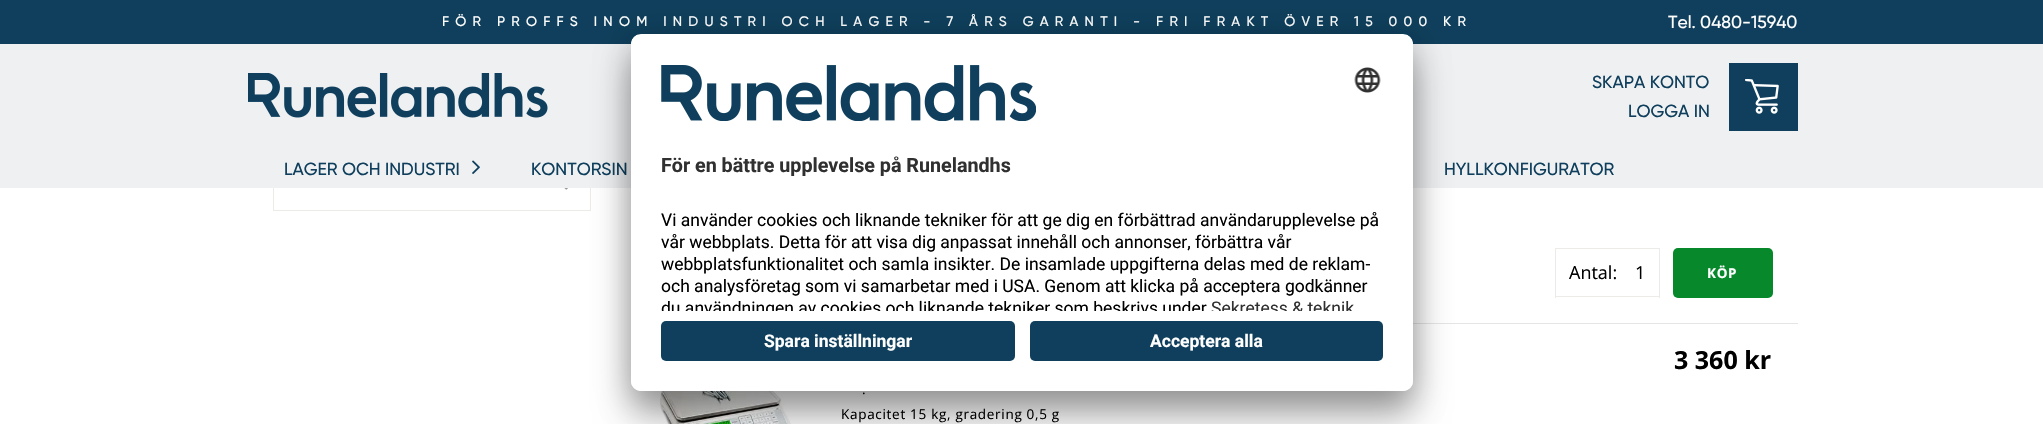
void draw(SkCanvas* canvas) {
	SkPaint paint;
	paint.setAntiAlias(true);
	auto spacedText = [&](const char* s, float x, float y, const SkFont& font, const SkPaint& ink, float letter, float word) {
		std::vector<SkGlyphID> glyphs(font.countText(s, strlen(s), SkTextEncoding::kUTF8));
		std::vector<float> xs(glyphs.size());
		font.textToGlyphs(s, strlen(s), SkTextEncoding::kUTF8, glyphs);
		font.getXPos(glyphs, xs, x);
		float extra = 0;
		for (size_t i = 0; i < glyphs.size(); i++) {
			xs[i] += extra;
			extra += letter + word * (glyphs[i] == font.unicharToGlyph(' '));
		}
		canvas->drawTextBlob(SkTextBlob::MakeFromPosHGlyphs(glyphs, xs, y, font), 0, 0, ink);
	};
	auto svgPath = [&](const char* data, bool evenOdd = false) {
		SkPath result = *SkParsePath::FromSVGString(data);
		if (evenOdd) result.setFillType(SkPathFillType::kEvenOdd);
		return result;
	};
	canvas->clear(0xffffffff);
	paint.setStroke(true);
	paint.setStrokeWidth(1);
	paint.setColor(0xffedebe8);
	canvas->drawRect(SkRect::MakeXYWH(273.5, 160.5, 317, 50), paint);
	paint.setStroke(false);
	paint.setColor(0xffeef0f2);
	canvas->drawRect(SkRect::MakeXYWH(0, 44, 2043, 144), paint);
	paint.setColor(0xff0f3f5c);
	canvas->drawRect(SkRect::MakeXYWH(0, 0, 2043, 44), paint);
	SkFont f1(fontMgr->matchFamilyStyle("Gilroy", SkFontStyle(500, SkFontStyle::kNormal_Width, SkFontStyle::kUpright_Slant)), 13.75);
	f1.setSubpixel(true);
	paint.setColor(0xffffffff);
	spacedText("FÖR PROFFS INOM INDUSTRI OCH LAGER - 7 ÅRS GARANTI - FRI FRAKT ÖVER 15 000 KR", 442, 26, f1, paint, 6.25, 0);
	SkFont f2(fontMgr->matchFamilyStyle("Gilroy", SkFontStyle(500, SkFontStyle::kNormal_Width, SkFontStyle::kUpright_Slant)), 17.5);
	f2.setSubpixel(true);
	canvas->drawString("Tel. 0480-15940", 1668, 28, f2, paint);
	canvas->drawImageRect(SkImages::DeferredFromEncodedData(SkData::MakeFromFileName("img1.png")), SkRect::MakeXYWH(248, 73, 300, 45), SkSamplingOptions());
	paint.setColor(0xff0f3f5c);
	canvas->drawString("SKAPA KONTO", 1592, 88, f2, paint);
	canvas->drawString("LOGGA IN", 1628, 117, f2, paint);
	canvas->drawRect(SkRect::MakeXYWH(1729, 63, 69, 68), paint);
	canvas->drawImageRect(SkImages::DeferredFromEncodedData(SkData::MakeFromFileName("img2.png")), SkRect::MakeXYWH(1745, 79, 34, 35), SkSamplingOptions());
	canvas->drawString("LAGER OCH INDUSTRI", 284, 175, f2, paint);
	canvas->drawImageRect(SkImages::DeferredFromEncodedData(SkData::MakeFromFileName("img3.png")), SkRect::MakeXYWH(472, 160, 8, 14), SkSamplingOptions());
	canvas->drawString("KONTORSIN", 531, 175, f2, paint);
	canvas->drawString("HYLLKONFIGURATOR", 1444, 175, f2, paint);
	canvas->drawImageRect(SkImages::DeferredFromEncodedData(SkData::MakeFromFileName("img4.png")), SkRect::MakeXYWH(564, 188, 4, 2), SkSamplingOptions());
	paint.setColor(0xffe5e5e5);
	canvas->drawRect(SkRect::MakeXYWH(1413, 323, 385, 1), paint);
	paint.setColor(0xffedebe8);
	canvas->drawRect(SkRect::MakeXYWH(1555, 248, 105, 1), paint);
	canvas->drawRect(SkRect::MakeXYWH(1555, 296, 69, 1), paint);
	canvas->drawRect(SkRect::MakeXYWH(1555, 248, 1, 50), paint);
	SkFont f3(fontMgr->matchFamilyStyle("Open Sans", SkFontStyle::Normal()), 18);
	f3.setSubpixel(true);
	paint.setColor(0xff000000);
	canvas->drawString("Antal:", 1569, 279, f3, paint);
	paint.setColor(0xffedebe8);
	canvas->drawRect(SkRect::MakeXYWH(1659, 248, 1, 50), paint);
	canvas->drawRect(SkRect::MakeXYWH(1624, 296, 36, 1), paint);
	paint.setColor(0xff000000);
	canvas->drawString("1", 1635, 279, f3, paint);
	paint.setColor(0xff06882b);
	canvas->drawRoundRect(SkRect::MakeXYWH(1673, 248, 100, 50), 5, 5, paint);
	SkFont f4(fontMgr->matchFamilyStyle("Open Sans", SkFontStyle::Bold()), 13.5);
	f4.setSubpixel(true);
	paint.setColor(0xffffffff);
	spacedText("KÖP", 1707, 278, f4, paint, 0.7, 0);
	canvas->drawImageRect(SkImages::DeferredFromEncodedData(SkData::MakeFromFileName("img5.png")), SkRect::MakeXYWH(660, 391, 131, 33), SkSamplingOptions());
	SkFont f5(fontMgr->matchFamilyStyle("Open Sans", SkFontStyle::Bold()), 25);
	f5.setSubpixel(true);
	paint.setColor(0xff000000);
	canvas->drawString("3 360 kr", 1674, 369, f5, paint);
	SkFont f6(fontMgr->matchFamilyStyle("Open Sans", SkFontStyle::Normal()), 13.5);
	f6.setSubpixel(true);
	spacedText(".", 862, 394, f6, paint, 0.7, 0);
	spacedText("Kapacitet 15 kg, gradering 0,5 g", 841, 419, f6, paint, 0.7, 0);
	paint.setColor(0x4d000000);
	paint.setMaskFilter(SkMaskFilter::MakeBlur(kNormal_SkBlurStyle, 17.5));
	canvas->drawRoundRect(SkRect::MakeXYWH(631, 59, 782, 357), 10, 10, paint);
	paint.setMaskFilter(nullptr);
	paint.setColor(0x38000000);
	paint.setMaskFilter(SkMaskFilter::MakeBlur(kNormal_SkBlurStyle, 16));
	canvas->drawRoundRect(SkRect::MakeXYWH(631, 40, 782, 358), 10, 10, paint);
	paint.setMaskFilter(nullptr);
	paint.setColor(0xffffffff);
	canvas->drawRoundRect(SkRect::MakeXYWH(631, 34, 782, 357), 10, 10, paint);
	canvas->save();
	canvas->clipPath(svgPath("M641 34H1403C1408.5 34 1413 38.5 1413 44V381C1413 386.5 1408.5 391 1403 391H641C635.5 391 631 386.5 631 381V44C631 38.5 635.5 34 641 34Z"), true);
	canvas->clipPath(svgPath("M641 34H1403C1408.5 34 1413 38.5 1413 44V311H631V44C631 38.5 635.5 34 641 34Z"), true);
	canvas->drawRect(SkRect::MakeXYWH(631, 35, 782, 276), paint);
	canvas->restore();
	canvas->drawImageRect(SkImages::DeferredFromEncodedData(SkData::MakeFromFileName("img6.png")), SkRect::MakeXYWH(661, 65, 375, 56), SkSamplingOptions());
	canvas->drawImageRect(SkImages::DeferredFromEncodedData(SkData::MakeFromFileName("img7.png")), SkRect::MakeXYWH(1354, 67, 27, 26), SkSamplingOptions());
	SkFont f7(fontMgr->matchFamilyStyle("Roboto", SkFontStyle::Bold()), 19.7);
	f7.setSubpixel(true);
	paint.setColor(0xff303030);
	canvas->drawString("För en bättre upplevelse på Runelandhs", 661, 172, f7, paint);
	SkFont f8(fontMgr->matchFamilyStyle("Roboto", SkFontStyle::Normal()), 17.5);
	f8.setSubpixel(true);
	paint.setColor(0xff000000);
	canvas->drawString("Vi använder cookies och liknande tekniker för att ge dig en förbättrad användarupplevelse på", 661, 226, f8, paint);
	canvas->drawString("vår webbplats. Detta för att visa dig anpassat innehåll och annonser, förbättra vår", 661, 248, f8, paint);
	canvas->drawString("webbplatsfunktionalitet och samla insikter. De insamlade uppgifterna delas med de reklam-", 661, 270, f8, paint);
	canvas->drawString("och analysföretag som vi samarbetar med i USA. Genom att klicka på acceptera godkänner", 661, 292, f8, paint);
	canvas->save();
	canvas->clipPath(svgPath("M641 34H1403C1408.5 34 1413 38.5 1413 44V311H631V44C631 38.5 635.5 34 641 34Z"), true);
	canvas->drawString("du användningen av cookies och liknande tekniker som beskrivs under", 661, 314, f8, paint);
	paint.setColor(0xff303030);
	canvas->drawString("Sekretess & teknik", 1211, 314, f8, paint);
	canvas->restore();
	paint.setColor(0xffffffff);
	canvas->drawPath(svgPath("M631 311H1413V381C1413 386.5 1408.5 391 1403 391H641C635.5 391 631 386.5 631 381Z"), paint);
	paint.setColor(0xff0f3f5c);
	canvas->drawRoundRect(SkRect::MakeXYWH(661, 321, 354, 40), 5, 5, paint);
	SkFont f9(fontMgr->matchFamilyStyle("Roboto", SkFontStyle::Bold()), 17.5);
	f9.setSubpixel(true);
	paint.setColor(0xffffffff);
	canvas->drawString("Spara inställningar", 764, 347, f9, paint);
	paint.setColor(0xff0f3f5c);
	canvas->drawRoundRect(SkRect::MakeXYWH(1030, 321, 353, 40), 5, 5, paint);
	paint.setColor(0xffffffff);
	canvas->drawString("Acceptera alla", 1150, 347, f9, paint);
}
